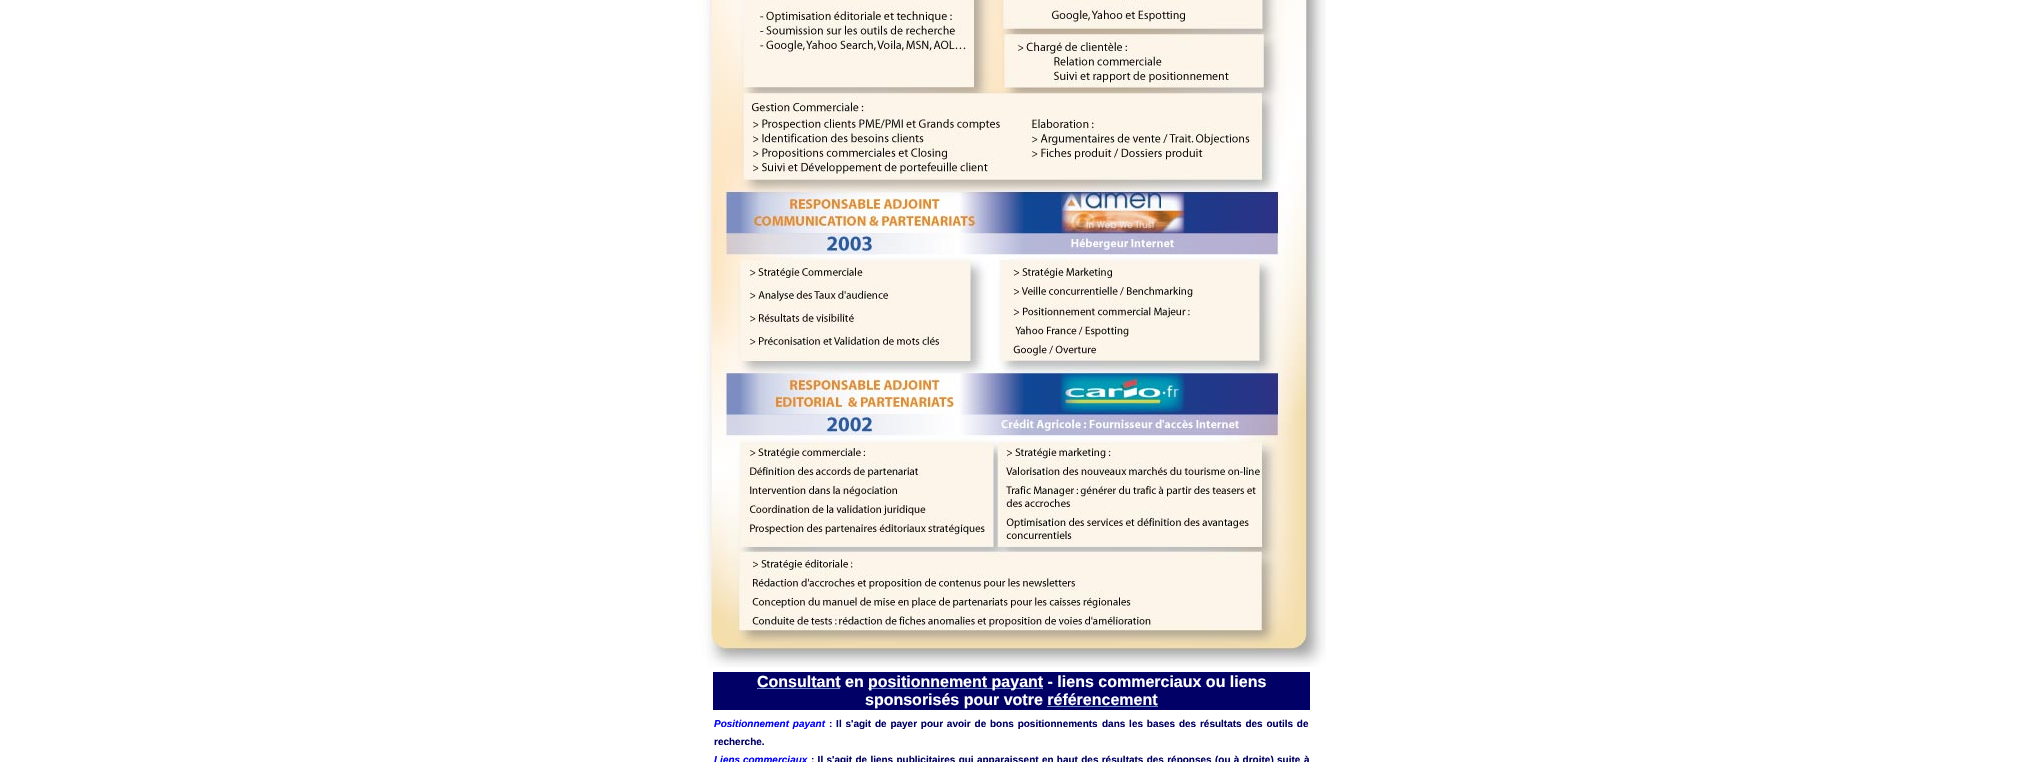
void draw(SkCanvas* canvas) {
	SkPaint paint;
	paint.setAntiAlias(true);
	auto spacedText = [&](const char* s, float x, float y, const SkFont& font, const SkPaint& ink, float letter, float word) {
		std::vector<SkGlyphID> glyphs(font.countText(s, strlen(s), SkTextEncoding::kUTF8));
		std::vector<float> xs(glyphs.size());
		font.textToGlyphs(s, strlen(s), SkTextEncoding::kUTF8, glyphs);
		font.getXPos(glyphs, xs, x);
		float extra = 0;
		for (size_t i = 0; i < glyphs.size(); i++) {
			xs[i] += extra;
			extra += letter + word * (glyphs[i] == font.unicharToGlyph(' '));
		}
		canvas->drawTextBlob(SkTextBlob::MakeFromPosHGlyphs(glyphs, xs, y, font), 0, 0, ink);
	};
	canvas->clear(0xffffffff);
	canvas->drawImageRect(SkImages::DeferredFromEncodedData(SkData::MakeFromFileName("img1.png")), SkRect::MakeXYWH(698, 0, 628, 667), SkSamplingOptions());
	paint.setColor(0xff000066);
	canvas->drawRect(SkRect::MakeXYWH(713, 672, 597, 38), paint);
	SkFont f1(fontMgr->matchFamilyStyle("Liberation Sans", SkFontStyle::Bold()), 16);
	f1.setSubpixel(true);
	paint.setColor(0xffffffff);
	canvas->drawString("Consultant en", 757, 687, f1, paint);
	paint.setColor(0xff7090d0);
	canvas->drawRect(SkRect::MakeXYWH(757, 688, 83, 1), paint);
	canvas->drawRect(SkRect::MakeXYWH(868, 688, 175, 1), paint);
	paint.setColor(0xffffffff);
	canvas->drawString("positionnement payant - liens commerciaux ou liens", 868, 687, f1, paint);
	canvas->drawString("sponsorisés pour votre référencement", 865, 705, f1, paint);
	paint.setColor(0xff7090d0);
	canvas->drawRect(SkRect::MakeXYWH(1047, 706, 111, 1), paint);
	SkFont f2(fontMgr->matchFamilyStyle("Liberation Sans", SkFontStyle::BoldItalic()), 10);
	f2.setSubpixel(true);
	paint.setColor(0xff0000ff);
	spacedText("Positionnement payant", 714, 727, f2, paint, 0, 1);
	SkFont f3(fontMgr->matchFamilyStyle("Liberation Sans", SkFontStyle::Bold()), 10);
	f3.setSubpixel(true);
	paint.setColor(0xff000066);
	spacedText(": Il s'agit de payer pour avoir de bons positionnements", 829, 727, f3, paint, 0, 1);
	spacedText("dans les bases des résultats des outils de", 1102, 727, f3, paint, 0, 1);
	canvas->drawString("recherche.", 714, 745, f3, paint);
	paint.setColor(0xff0000ff);
	canvas->drawString("Liens commerciaux", 714, 763, f2, paint);
	paint.setColor(0xff000066);
	spacedText(": Il s'agit de liens publicitaires qui apparaissent en haut des résultats des réponses (ou à droite)", 811, 763, f3, paint, 0, 0.5);
	spacedText("suite à", 1277, 763, f3, paint, 0, 1);
}
